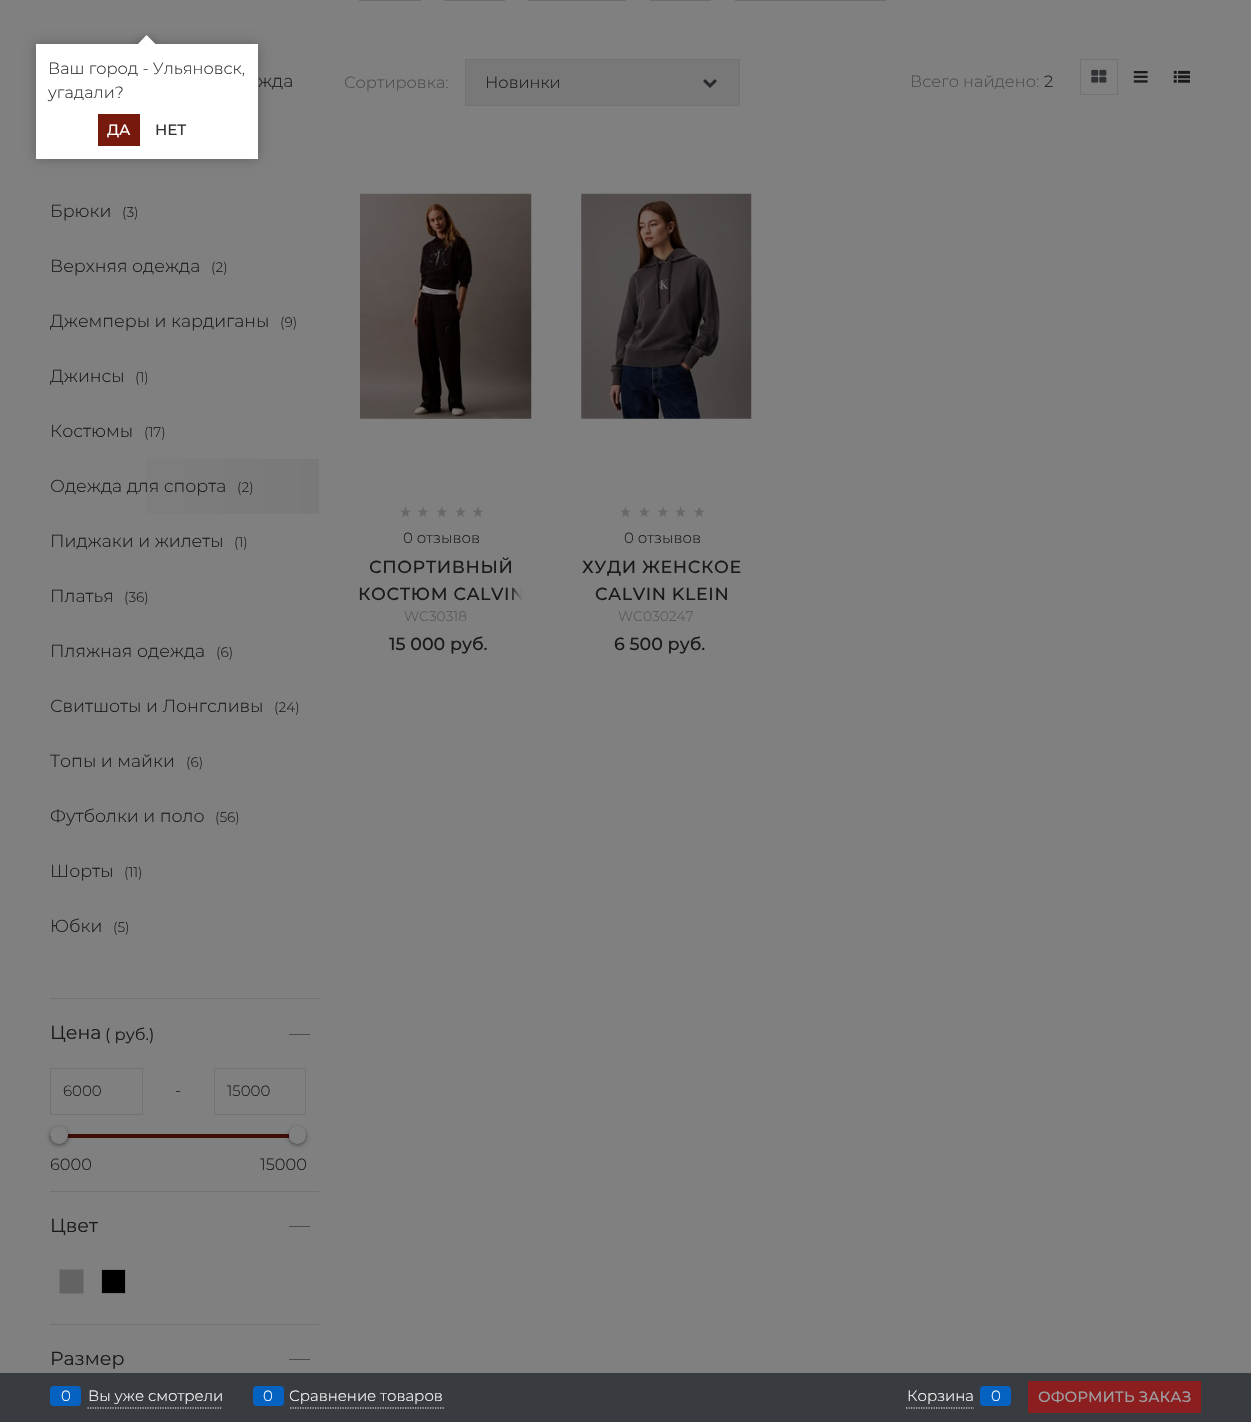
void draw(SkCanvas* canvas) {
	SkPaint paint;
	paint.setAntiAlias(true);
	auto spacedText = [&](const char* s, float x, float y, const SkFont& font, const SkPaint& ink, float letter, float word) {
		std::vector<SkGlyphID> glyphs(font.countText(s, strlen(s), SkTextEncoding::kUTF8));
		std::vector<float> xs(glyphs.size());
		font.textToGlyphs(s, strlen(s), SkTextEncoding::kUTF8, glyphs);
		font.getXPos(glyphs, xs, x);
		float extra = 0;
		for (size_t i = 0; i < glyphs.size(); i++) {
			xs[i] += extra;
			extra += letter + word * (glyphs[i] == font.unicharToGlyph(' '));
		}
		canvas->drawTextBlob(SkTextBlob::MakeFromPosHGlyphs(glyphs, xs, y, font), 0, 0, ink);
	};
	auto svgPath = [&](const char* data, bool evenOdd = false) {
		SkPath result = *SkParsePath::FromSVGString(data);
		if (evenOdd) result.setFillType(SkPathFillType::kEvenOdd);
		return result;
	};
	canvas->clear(0xff808080);
	paint.setColor(0x40000000);
	paint.setMaskFilter(SkMaskFilter::MakeBlur(kNormal_SkBlurStyle, 5.5));
	canvas->drawRect(SkRect::MakeXYWH(36, 44, 222, 115), paint);
	paint.setMaskFilter(nullptr);
	paint.setColor(0xffffffff);
	canvas->drawRect(SkRect::MakeXYWH(36, 44, 222, 115), paint);
	canvas->save();
	canvas->clipRect(SkRect::MakeXYWH(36, 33, 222, 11));
	paint.setColor(0x40000000);
	paint.setMaskFilter(SkMaskFilter::MakeBlur(kNormal_SkBlurStyle, 5.5));
	canvas->drawRect(SkRect::MakeXYWH(140, 38, 13, 12), paint);
	paint.setMaskFilter(nullptr);
	canvas->restore();
	canvas->save();
	canvas->clipRect(SkRect::MakeXYWH(36, 33, 222, 11));
	paint.setColor(0xffffffff);
	canvas->drawPath(svgPath("M146.5 35L155.5 44L146.5 52.5L138 44Z"), paint);
	canvas->restore();
	SkFont f1(fontMgr->matchFamilyStyle("Montserrat", SkFontStyle(300, SkFontStyle::kNormal_Width, SkFontStyle::kUpright_Slant)), 16.25);
	f1.setSubpixel(true);
	paint.setColor(0xff333333);
	canvas->drawString("Ваш город - Ульяновск,", 48, 74, f1, paint);
	canvas->drawString("угадали?", 48, 98, f1, paint);
	paint.setColor(0xff77190c);
	canvas->drawRect(SkRect::MakeXYWH(98, 114, 42, 32), paint);
	SkFont f2(fontMgr->matchFamilyStyle("Montserrat", SkFontStyle(500, SkFontStyle::kNormal_Width, SkFontStyle::kUpright_Slant)), 15);
	f2.setSubpixel(true);
	paint.setColor(0xffffffff);
	canvas->drawString("ДА", 107, 135, f2, paint);
	paint.setColor(0xff333333);
	canvas->drawString("НЕТ", 155, 135, f2, paint);
	paint.setColor(0xff6c6c6c);
	canvas->drawRect(SkRect::MakeXYWH(359, 0, 62, 1), paint);
	canvas->drawRect(SkRect::MakeXYWH(444, 0, 61, 1), paint);
	canvas->drawRect(SkRect::MakeXYWH(528, 0, 98, 1), paint);
	canvas->drawRect(SkRect::MakeXYWH(650, 0, 61, 1), paint);
	canvas->drawRect(SkRect::MakeXYWH(735, 0, 151, 1), paint);
	SkFont f3(fontMgr->matchFamilyStyle("Montserrat", SkFontStyle(300, SkFontStyle::kNormal_Width, SkFontStyle::kUpright_Slant)), 17.5);
	f3.setSubpixel(true);
	paint.setColor(0xff1a1a1a);
	canvas->drawString("жда", 258, 87, f3, paint);
	canvas->drawString("Брюки", 50, 217, f3, paint);
	SkFont f4(fontMgr->matchFamilyStyle("Montserrat", SkFontStyle(300, SkFontStyle::kNormal_Width, SkFontStyle::kUpright_Slant)), 13.75);
	f4.setSubpixel(true);
	canvas->drawString("(3)", 122, 217, f4, paint);
	canvas->drawString("Верхняя одежда", 50, 272, f3, paint);
	canvas->drawString("(2)", 211, 272, f4, paint);
	canvas->drawString("Джемперы и кардиганы", 50, 327, f3, paint);
	canvas->drawString("(9)", 280, 327, f4, paint);
	canvas->drawString("Джинсы", 50, 382, f3, paint);
	canvas->drawString("(1)", 135, 382, f4, paint);
	canvas->drawString("Костюмы", 50, 437, f3, paint);
	canvas->drawString("(17)", 144, 437, f4, paint);
	{
		const SkColor colors[] = {0xff808080, 0xff797979};
		const float stops[] = {0, 1};
		const SkPoint ends[] = {{50, 486}, {319, 486}};
		paint.setShader(SkGradientShader::MakeLinear(ends, colors, stops, 2, SkTileMode::kClamp));
		paint.setAlpha(255);
	}
	canvas->drawRect(SkRect::MakeXYWH(146, 459, 173, 55), paint);
	paint.setShader(nullptr);
	paint.setColor(0xff1a1a1a);
	canvas->drawString("Одежда для спорта", 50, 492, f3, paint);
	canvas->drawString("(2)", 237, 492, f4, paint);
	canvas->drawString("Пиджаки и жилеты", 50, 547, f3, paint);
	canvas->drawString("(1)", 234, 547, f4, paint);
	canvas->drawString("Платья", 50, 602, f3, paint);
	canvas->drawString("(36)", 124, 602, f4, paint);
	canvas->drawString("Пляжная одежда", 50, 657, f3, paint);
	canvas->drawString("(6)", 216, 657, f4, paint);
	canvas->drawString("Свитшоты и Лонгсливы", 50, 712, f3, paint);
	canvas->drawString("(24)", 274, 712, f4, paint);
	canvas->drawString("Топы и майки", 50, 767, f3, paint);
	canvas->drawString("(6)", 186, 767, f4, paint);
	canvas->drawString("Футболки и поло", 50, 822, f3, paint);
	canvas->drawString("(56)", 215, 822, f4, paint);
	canvas->drawString("Шорты", 50, 877, f3, paint);
	canvas->drawString("(11)", 124, 877, f4, paint);
	canvas->drawString("Юбки", 50, 932, f3, paint);
	canvas->drawString("(5)", 113, 932, f4, paint);
	paint.setColor(0xff717272);
	canvas->drawRect(SkRect::MakeXYWH(50, 998, 269, 1), paint);
	SkFont f5(fontMgr->matchFamilyStyle("Montserrat", SkFontStyle::Normal()), 19);
	f5.setSubpixel(true);
	paint.setColor(0xff1a1a1a);
	canvas->drawString("Цена", 50, 1039, f5, paint);
	SkFont f6(fontMgr->matchFamilyStyle("Montserrat", SkFontStyle::Normal()), 16.25);
	f6.setSubpixel(true);
	canvas->drawString("( руб.)", 105, 1040, f6, paint);
	paint.setColor(0xff4a4b4e);
	canvas->drawRect(SkRect::MakeXYWH(289, 1034, 21, 1), paint);
	paint.setStroke(true);
	paint.setStrokeWidth(1);
	paint.setColor(0xff717272);
	canvas->drawRect(SkRect::MakeXYWH(50.5, 1068.5, 92, 46), paint);
	SkFont f7(fontMgr->matchFamilyStyle("Montserrat", SkFontStyle(300, SkFontStyle::kNormal_Width, SkFontStyle::kUpright_Slant)), 15);
	f7.setSubpixel(true);
	paint.setStroke(false);
	paint.setColor(0xff1a1a1a);
	canvas->drawString("6000", 63, 1096, f7, paint);
	canvas->drawString("-", 175, 1096, f1, paint);
	paint.setStroke(true);
	paint.setColor(0xff717272);
	canvas->drawRect(SkRect::MakeXYWH(214.5, 1068.5, 91, 46), paint);
	paint.setStroke(false);
	paint.setColor(0xff1a1a1a);
	canvas->drawString("15000", 227, 1096, f7, paint);
	paint.setColor(0xff3c0d06);
	canvas->drawRect(SkRect::MakeXYWH(50, 1134, 239, 4), paint);
	paint.setColor(0x80000000);
	paint.setMaskFilter(SkMaskFilter::MakeBlur(kNormal_SkBlurStyle, 2));
	canvas->drawRoundRect(SkRect::MakeXYWH(50, 1128, 18, 17), 8.5, 8.5, paint);
	paint.setMaskFilter(nullptr);
	paint.setColor(0xff808080);
	canvas->drawCircle(59, 1135, 9, paint);
	paint.setColor(0x80000000);
	paint.setMaskFilter(SkMaskFilter::MakeBlur(kNormal_SkBlurStyle, 2));
	canvas->drawRoundRect(SkRect::MakeXYWH(289, 1128, 17, 17), 8.5, 8.5, paint);
	paint.setMaskFilter(nullptr);
	paint.setColor(0xff808080);
	canvas->drawRoundRect(SkRect::MakeXYWH(289, 1126, 17, 18), 8.5, 8.5, paint);
	paint.setColor(0xff1a1a1a);
	canvas->drawString("6000", 50, 1170, f1, paint);
	canvas->drawString("15000", 260, 1170, f1, paint);
	paint.setColor(0xff717272);
	canvas->drawRect(SkRect::MakeXYWH(50, 1191, 269, 1), paint);
	paint.setColor(0xff1a1a1a);
	canvas->drawString("Цвет", 50, 1232, f5, paint);
	paint.setColor(0xff4a4b4e);
	canvas->drawRect(SkRect::MakeXYWH(289, 1226, 21, 1), paint);
	paint.setColor(0xff636363);
	canvas->drawRect(SkRect::MakeXYWH(59.5, 1269.5, 24, 24), paint);
	paint.setStroke(true);
	paint.setColor(0xff717272);
	canvas->drawRect(SkRect::MakeXYWH(59.5, 1269.5, 24, 24), paint);
	paint.setStroke(false);
	paint.setColor(0xff000000);
	canvas->drawRect(SkRect::MakeXYWH(101.5, 1269.5, 24, 24), paint);
	paint.setStroke(true);
	paint.setColor(0xff717272);
	canvas->drawRect(SkRect::MakeXYWH(101.5, 1269.5, 24, 24), paint);
	paint.setStroke(false);
	canvas->drawRect(SkRect::MakeXYWH(50, 1324, 269, 1), paint);
	paint.setColor(0xff1a1a1a);
	canvas->drawString("Размер", 50, 1365, f5, paint);
	paint.setColor(0xff4a4b4e);
	canvas->drawRect(SkRect::MakeXYWH(289, 1359, 21, 1), paint);
	canvas->drawString("Сортировка:", 344, 88, f1, paint);
	paint.setColor(0xff787878);
	canvas->drawRect(SkRect::MakeXYWH(465.5, 59.5, 274, 46), paint);
	paint.setStroke(true);
	paint.setColor(0xff717272);
	canvas->drawRect(SkRect::MakeXYWH(465.5, 59.5, 274, 46), paint);
	paint.setStroke(false);
	paint.setColor(0xff1a1a1a);
	canvas->drawString("Новинки", 485, 88, f1, paint);
	canvas->drawImageRect(SkImages::DeferredFromEncodedData(SkData::MakeFromFileName("img1.png")), SkRect::MakeXYWH(703, 79, 14, 9), SkSamplingOptions());
	paint.setColor(0xff4a4b4e);
	canvas->drawString("Всего найдено:", 910, 87, f1, paint);
	paint.setColor(0xff1a1a1a);
	canvas->drawString("2", 1044, 87, f1, paint);
	paint.setStroke(true);
	paint.setColor(0xff717272);
	canvas->drawRect(SkRect::MakeXYWH(1080.5, 59.5, 37, 35), paint);
	canvas->drawImageRect(SkImages::DeferredFromEncodedData(SkData::MakeFromFileName("img2.png")), SkRect::MakeXYWH(1091, 69, 16, 14), SkSamplingOptions());
	canvas->drawImageRect(SkImages::DeferredFromEncodedData(SkData::MakeFromFileName("img3.png")), SkRect::MakeXYWH(1133, 71, 15, 12), SkSamplingOptions());
	canvas->drawImageRect(SkImages::DeferredFromEncodedData(SkData::MakeFromFileName("img4.png")), SkRect::MakeXYWH(1173, 70, 17, 13), SkSamplingOptions());
	canvas->drawImageRect(SkImages::DeferredFromEncodedData(SkData::MakeFromFileName("img5.png")), SkRect::MakeXYWH(360, 193, 172, 226), SkSamplingOptions());
	canvas->drawImageRect(SkImages::DeferredFromEncodedData(SkData::MakeFromFileName("img6.png")), SkRect::MakeXYWH(400, 506, 11, 11), SkSamplingOptions());
	canvas->drawImageRect(SkImages::DeferredFromEncodedData(SkData::MakeFromFileName("img7.png")), SkRect::MakeXYWH(418, 507, 10, 10), SkSamplingOptions());
	canvas->drawImageRect(SkImages::DeferredFromEncodedData(SkData::MakeFromFileName("img8.png")), SkRect::MakeXYWH(436, 506, 11, 11), SkSamplingOptions());
	canvas->drawImageRect(SkImages::DeferredFromEncodedData(SkData::MakeFromFileName("img6.png")), SkRect::MakeXYWH(455, 506, 11, 11), SkSamplingOptions());
	canvas->drawImageRect(SkImages::DeferredFromEncodedData(SkData::MakeFromFileName("img7.png")), SkRect::MakeXYWH(473, 507, 10, 10), SkSamplingOptions());
	paint.setStroke(false);
	paint.setColor(0xff1a1a1a);
	canvas->drawString("0 отзывов", 403, 543, f7, paint);
	SkFont f8(fontMgr->matchFamilyStyle("Montserrat", SkFontStyle(500, SkFontStyle::kNormal_Width, SkFontStyle::kUpright_Slant)), 17.5);
	f8.setSubpixel(true);
	spacedText("СПОРТИВНЫЙ", 369, 573, f8, paint, 0.6, 0);
	spacedText("КОСТЮМ CALVIN", 358, 600, f8, paint, 0.6, 0);
	{
		const SkColor colors[] = {0x00808080, 0xff808080};
		const float stops[] = {0, 0.7};
		const SkPoint ends[] = {{510, 593}, {528, 593}};
		paint.setShader(SkGradientShader::MakeLinear(ends, colors, stops, 2, SkTileMode::kClamp));
		paint.setAlpha(255);
	}
	canvas->drawRect(SkRect::MakeXYWH(512, 587, 11, 13), paint);
	paint.setShader(nullptr);
	paint.setColor(0xff535458);
	canvas->drawString("WC30318", 404, 621, f4, paint);
	paint.setColor(0xff1a1a1a);
	canvas->drawString("15 000 руб.", 389, 650, f8, paint);
	canvas->drawImageRect(SkImages::DeferredFromEncodedData(SkData::MakeFromFileName("img9.png")), SkRect::MakeXYWH(581, 193, 171, 226), SkSamplingOptions());
	canvas->drawImageRect(SkImages::DeferredFromEncodedData(SkData::MakeFromFileName("img6.png")), SkRect::MakeXYWH(620, 506, 11, 11), SkSamplingOptions());
	canvas->drawImageRect(SkImages::DeferredFromEncodedData(SkData::MakeFromFileName("img10.png")), SkRect::MakeXYWH(639, 506, 11, 11), SkSamplingOptions());
	canvas->drawImageRect(SkImages::DeferredFromEncodedData(SkData::MakeFromFileName("img7.png")), SkRect::MakeXYWH(658, 507, 10, 10), SkSamplingOptions());
	canvas->drawImageRect(SkImages::DeferredFromEncodedData(SkData::MakeFromFileName("img6.png")), SkRect::MakeXYWH(675, 506, 11, 11), SkSamplingOptions());
	canvas->drawImageRect(SkImages::DeferredFromEncodedData(SkData::MakeFromFileName("img10.png")), SkRect::MakeXYWH(694, 506, 11, 11), SkSamplingOptions());
	canvas->drawString("0 отзывов", 624, 543, f7, paint);
	spacedText("ХУДИ ЖЕНСКОЕ", 582, 573, f8, paint, 0.6, 0);
	spacedText("CALVIN KLEIN", 595, 600, f8, paint, 0.6, 0);
	paint.setColor(0xff535458);
	canvas->drawString("WC030247", 618, 621, f4, paint);
	paint.setColor(0xff1a1a1a);
	canvas->drawString("6 500 руб.", 614, 650, f8, paint);
	paint.setColor(0xff383c40);
	canvas->drawRect(SkRect::MakeXYWH(0, 1373, 1251, 49), paint);
	paint.setStroke(true);
	paint.setStrokeWidth(1.2);
	paint.setColor(0xffffffff);
	paint.setPathEffect(SkDashPathEffect::Make({{1.25f, 1.25f}}, 0));
	canvas->drawPath(svgPath("M87.5 1408H222.5"), paint);
	paint.setPathEffect(nullptr);
	paint.setStroke(false);
	paint.setColor(0xff0662c1);
	canvas->drawRoundRect(SkRect::MakeXYWH(50, 1386, 31, 20), 4, 4, paint);
	paint.setColor(0xffffffff);
	canvas->drawString("0", 61, 1401, f7, paint);
	canvas->drawString("Вы уже смотрели", 88, 1401, f7, paint);
	paint.setStroke(true);
	paint.setPathEffect(SkDashPathEffect::Make({{1.25f, 1.25f}}, 0));
	canvas->drawPath(svgPath("M290 1408H444"), paint);
	paint.setPathEffect(nullptr);
	paint.setStroke(false);
	paint.setColor(0xff0662c1);
	canvas->drawRoundRect(SkRect::MakeXYWH(253, 1386, 31, 20), 4, 4, paint);
	paint.setColor(0xffffffff);
	canvas->drawString("0", 263, 1401, f7, paint);
	canvas->drawString("Сравнение товаров", 289, 1401, f7, paint);
	paint.setStroke(true);
	paint.setPathEffect(SkDashPathEffect::Make({{1.25f, 1.25f}}, 0));
	canvas->drawPath(svgPath("M906 1408H974"), paint);
	paint.setPathEffect(nullptr);
	paint.setStroke(false);
	canvas->drawString("Корзина", 907, 1401, f7, paint);
	paint.setColor(0xff0662c1);
	canvas->drawRoundRect(SkRect::MakeXYWH(980, 1386, 31, 20), 4, 4, paint);
	paint.setColor(0xffffffff);
	canvas->drawString("0", 991, 1401, f7, paint);
	paint.setColor(0xff8d1e20);
	canvas->drawRect(SkRect::MakeXYWH(1028, 1381, 173, 32), paint);
	paint.setColor(0xff9c9ea0);
	canvas->drawString("ОФОРМИТЬ ЗАКАЗ", 1038, 1402, f2, paint);
}
